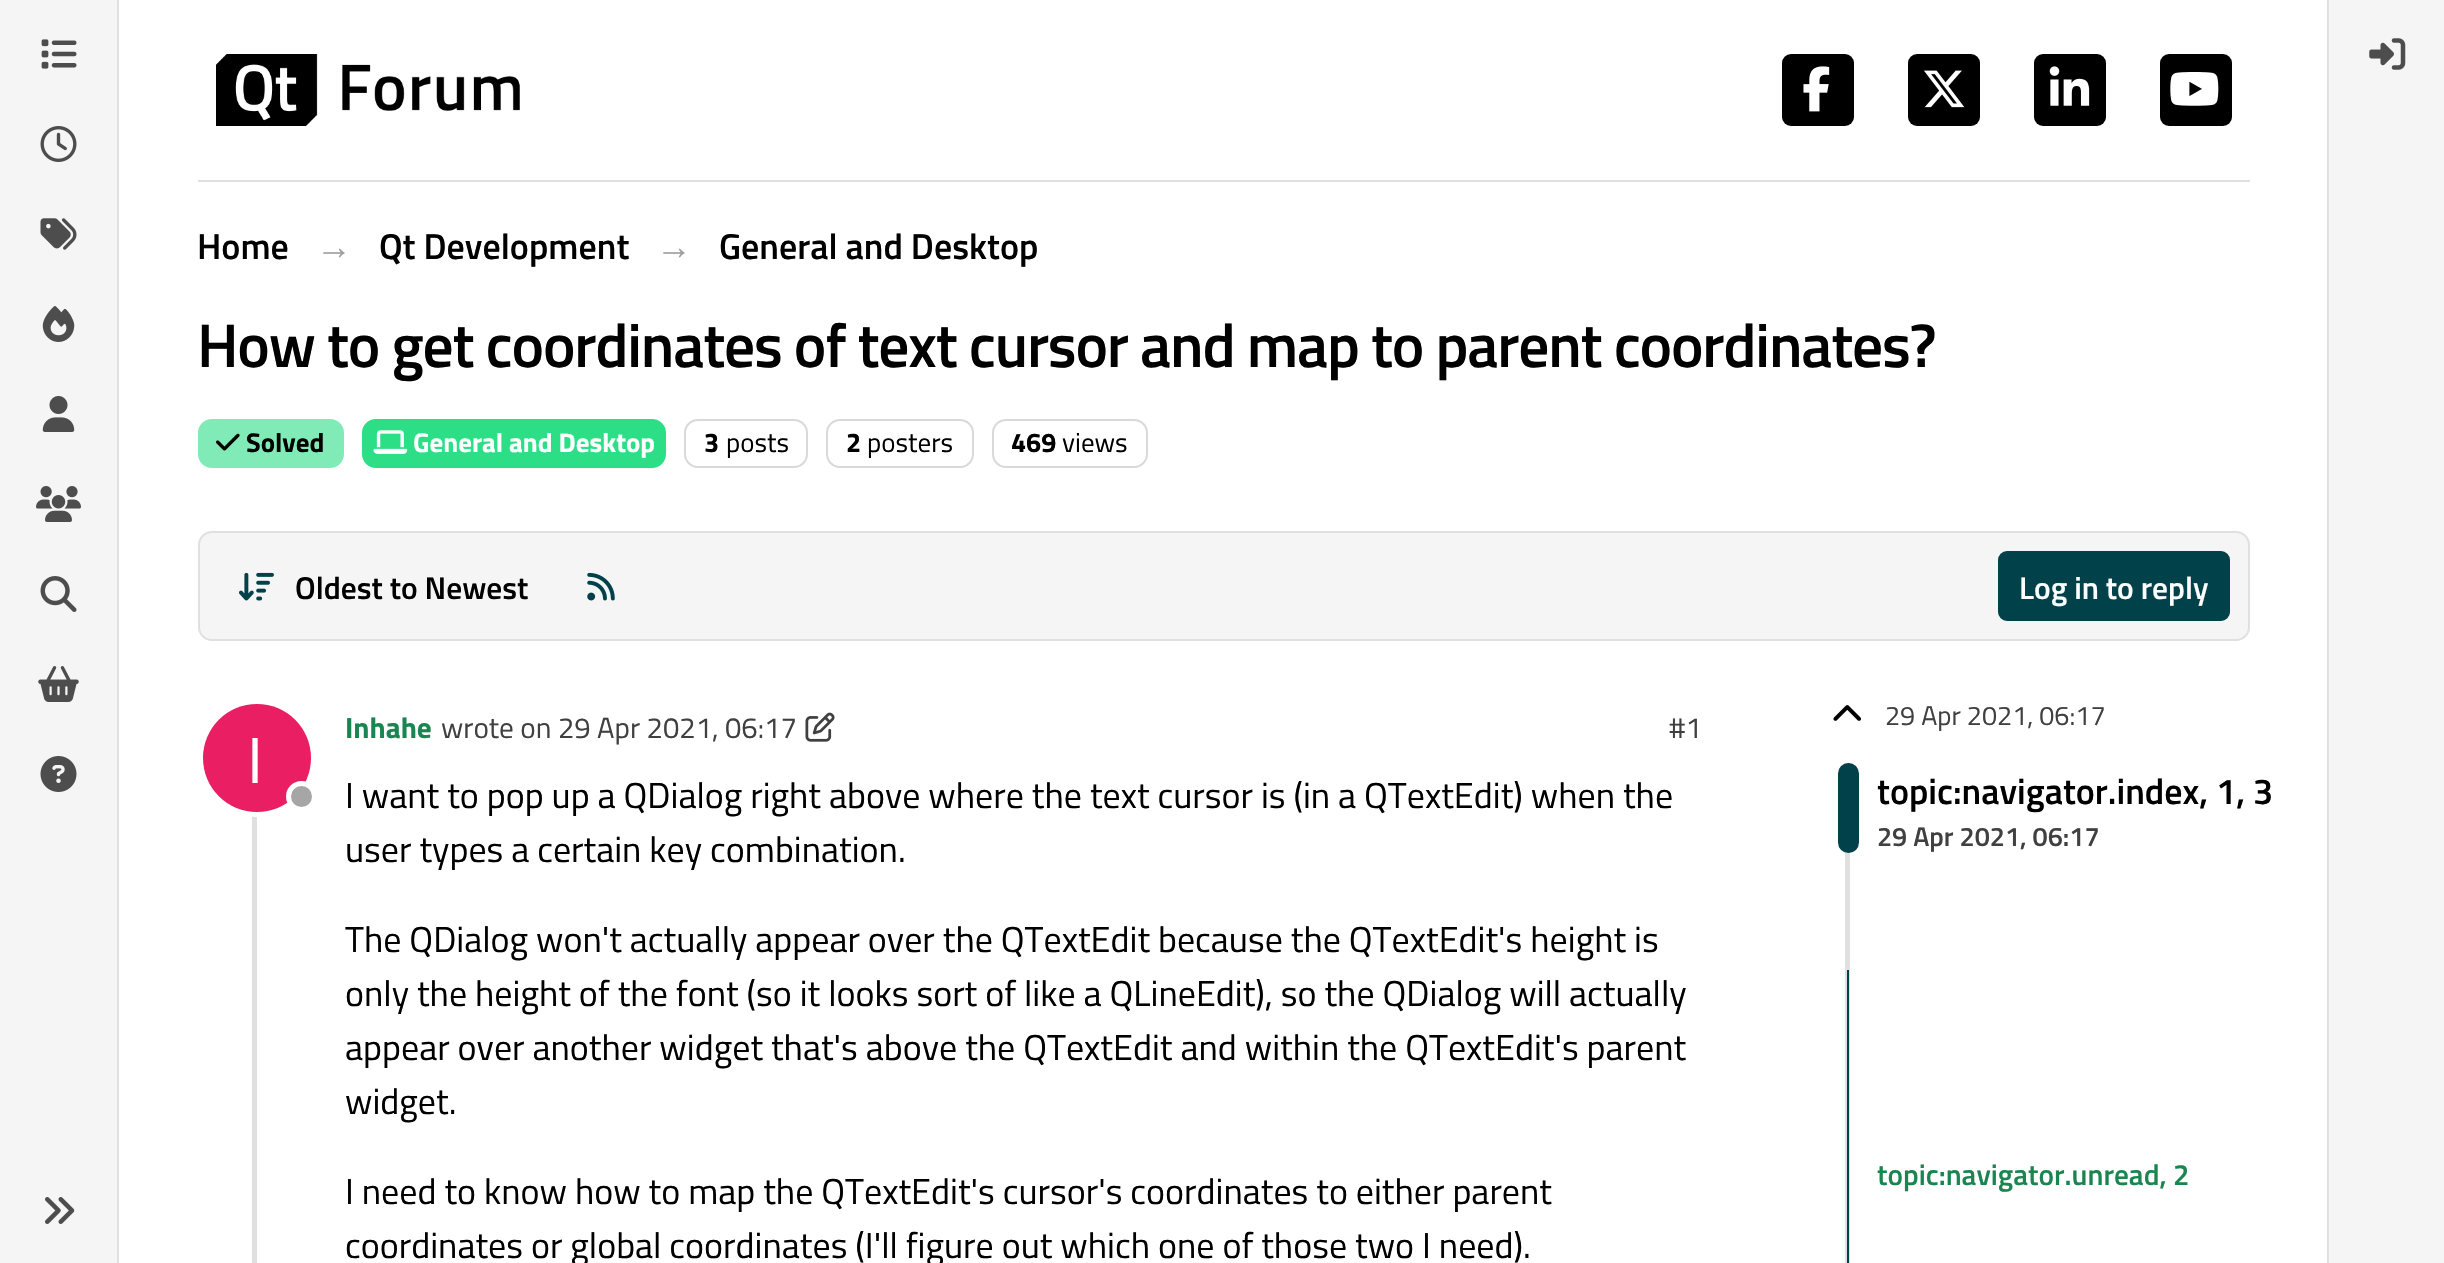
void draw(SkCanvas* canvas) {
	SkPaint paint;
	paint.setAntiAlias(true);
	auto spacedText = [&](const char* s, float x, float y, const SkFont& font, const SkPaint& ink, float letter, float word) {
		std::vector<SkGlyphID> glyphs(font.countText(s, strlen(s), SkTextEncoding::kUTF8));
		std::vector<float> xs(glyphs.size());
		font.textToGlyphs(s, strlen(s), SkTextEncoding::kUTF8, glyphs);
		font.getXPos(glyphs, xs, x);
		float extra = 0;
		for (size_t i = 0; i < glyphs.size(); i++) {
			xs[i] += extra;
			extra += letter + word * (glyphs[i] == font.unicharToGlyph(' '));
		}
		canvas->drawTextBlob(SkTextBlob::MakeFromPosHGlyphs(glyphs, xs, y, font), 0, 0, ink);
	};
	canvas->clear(0xffffffff);
	paint.setColor(0xfff5f5f5);
	canvas->drawRect(SkRect::MakeXYWH(0, 0, 117, 1263), paint);
	paint.setColor(0xffe0e0e0);
	canvas->drawRect(SkRect::MakeXYWH(117, 0, 2, 1263), paint);
	canvas->drawImageRect(SkImages::DeferredFromEncodedData(SkData::MakeFromFileName("img1.png")), SkRect::MakeXYWH(41, 39, 36, 30), SkSamplingOptions());
	canvas->drawImageRect(SkImages::DeferredFromEncodedData(SkData::MakeFromFileName("img2.png")), SkRect::MakeXYWH(40, 126, 37, 36), SkSamplingOptions());
	canvas->drawImageRect(SkImages::DeferredFromEncodedData(SkData::MakeFromFileName("img3.png")), SkRect::MakeXYWH(40, 218, 37, 32), SkSamplingOptions());
	canvas->drawImageRect(SkImages::DeferredFromEncodedData(SkData::MakeFromFileName("img4.png")), SkRect::MakeXYWH(42, 306, 33, 36), SkSamplingOptions());
	canvas->drawImageRect(SkImages::DeferredFromEncodedData(SkData::MakeFromFileName("img5.png")), SkRect::MakeXYWH(42, 396, 33, 36), SkSamplingOptions());
	canvas->drawImageRect(SkImages::DeferredFromEncodedData(SkData::MakeFromFileName("img6.png")), SkRect::MakeXYWH(36, 486, 45, 36), SkSamplingOptions());
	canvas->drawImageRect(SkImages::DeferredFromEncodedData(SkData::MakeFromFileName("img7.png")), SkRect::MakeXYWH(40, 576, 37, 36), SkSamplingOptions());
	canvas->drawImageRect(SkImages::DeferredFromEncodedData(SkData::MakeFromFileName("img8.png")), SkRect::MakeXYWH(38, 666, 41, 36), SkSamplingOptions());
	canvas->drawImageRect(SkImages::DeferredFromEncodedData(SkData::MakeFromFileName("img9.png")), SkRect::MakeXYWH(40, 756, 37, 36), SkSamplingOptions());
	canvas->drawImageRect(SkImages::DeferredFromEncodedData(SkData::MakeFromFileName("img10.png")), SkRect::MakeXYWH(45, 1197, 30, 27), SkSamplingOptions());
	canvas->drawRect(SkRect::MakeXYWH(198, 180, 2052, 2), paint);
	canvas->drawImageRect(SkImages::DeferredFromEncodedData(SkData::MakeFromFileName("img11.png")), SkRect::MakeXYWH(216, 54, 304, 72), SkSamplingOptions());
	paint.setColor(0xff000000);
	canvas->drawRoundRect(SkRect::MakeXYWH(1782, 54, 72, 72), 9, 9, paint);
	canvas->drawImageRect(SkImages::DeferredFromEncodedData(SkData::MakeFromFileName("img12.png")), SkRect::MakeXYWH(1803, 66, 27, 46), SkSamplingOptions());
	canvas->drawRoundRect(SkRect::MakeXYWH(1908, 54, 72, 72), 9, 9, paint);
	canvas->drawImageRect(SkImages::DeferredFromEncodedData(SkData::MakeFromFileName("img13.png")), SkRect::MakeXYWH(1924, 70, 41, 38), SkSamplingOptions());
	canvas->drawRoundRect(SkRect::MakeXYWH(2034, 54, 72, 72), 9, 9, paint);
	canvas->drawImageRect(SkImages::DeferredFromEncodedData(SkData::MakeFromFileName("img14.png")), SkRect::MakeXYWH(2049, 66, 41, 40), SkSamplingOptions());
	canvas->drawRoundRect(SkRect::MakeXYWH(2160, 54, 72, 72), 9, 9, paint);
	canvas->drawImageRect(SkImages::DeferredFromEncodedData(SkData::MakeFromFileName("img15.png")), SkRect::MakeXYWH(2170, 72, 49, 34), SkSamplingOptions());
	SkFont f1(fontMgr->matchFamilyStyle("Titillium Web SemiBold", SkFontStyle(600, SkFontStyle::kNormal_Width, SkFontStyle::kUpright_Slant)), 36);
	f1.setSubpixel(true);
	canvas->drawString("Home", 197, 259, f1, paint);
	SkFont f2(fontMgr->matchFamilyStyle("Liberation Sans", SkFontStyle::Bold()), 36);
	f2.setSubpixel(true);
	paint.setColor(0xff9e9e9e);
	canvas->drawString("→", 316, 259, f2, paint);
	paint.setColor(0xff000000);
	canvas->drawString("Qt Development", 379, 259, f1, paint);
	paint.setColor(0xff9e9e9e);
	canvas->drawString("→", 656, 259, f2, paint);
	paint.setColor(0xff000000);
	canvas->drawString("General and Desktop", 719, 259, f1, paint);
	SkFont f3(fontMgr->matchFamilyStyle("Titillium Web SemiBold", SkFontStyle(600, SkFontStyle::kNormal_Width, SkFontStyle::kUpright_Slant)), 61.5);
	f3.setSubpixel(true);
	spacedText("How to get coordinates of text cursor and map to parent coordinates?", 197, 367, f3, paint, -1.23, 0);
	paint.setColor(0xff80ebb6);
	canvas->drawRoundRect(SkRect::MakeXYWH(199, 420, 144, 47), 13, 13, paint);
	paint.setStroke(true);
	paint.setStrokeWidth(2);
	canvas->drawRoundRect(SkRect::MakeXYWH(199, 420, 144, 47), 13, 13, paint);
	canvas->drawImageRect(SkImages::DeferredFromEncodedData(SkData::MakeFromFileName("img16.png")), SkRect::MakeXYWH(216, 433, 24, 18), SkSamplingOptions());
	SkFont f4(fontMgr->matchFamilyStyle("Titillium Web", SkFontStyle::Bold()), 27);
	f4.setSubpixel(true);
	paint.setStroke(false);
	paint.setColor(0xff000000);
	canvas->drawString("Solved", 246, 452, f4, paint);
	paint.setColor(0xff2cde85);
	canvas->drawRoundRect(SkRect::MakeXYWH(363, 420, 302, 47), 13, 13, paint);
	paint.setStroke(true);
	canvas->drawRoundRect(SkRect::MakeXYWH(363, 420, 302, 47), 13, 13, paint);
	canvas->drawImageRect(SkImages::DeferredFromEncodedData(SkData::MakeFromFileName("img17.png")), SkRect::MakeXYWH(373, 430, 35, 24), SkSamplingOptions());
	paint.setStroke(false);
	paint.setColor(0xffffffff);
	canvas->drawString("General and Desktop", 413, 452, f4, paint);
	paint.setStroke(true);
	paint.setColor(0xffd9d9d9);
	canvas->drawRoundRect(SkRect::MakeXYWH(685, 420, 122, 47), 13, 13, paint);
	paint.setStroke(false);
	paint.setColor(0xff000000);
	canvas->drawString("3", 704, 452, f4, paint);
	SkFont f5(fontMgr->matchFamilyStyle("Titillium Web", SkFontStyle::Normal()), 27);
	f5.setSubpixel(true);
	canvas->drawString("posts", 726, 452, f5, paint);
	paint.setStroke(true);
	paint.setColor(0xffd9d9d9);
	canvas->drawRoundRect(SkRect::MakeXYWH(827, 420, 146, 47), 13, 13, paint);
	paint.setStroke(false);
	paint.setColor(0xff000000);
	canvas->drawString("2", 846, 452, f4, paint);
	canvas->drawString("posters", 867, 452, f5, paint);
	paint.setStroke(true);
	paint.setColor(0xffd9d9d9);
	canvas->drawRoundRect(SkRect::MakeXYWH(993, 420, 154, 47), 13, 13, paint);
	paint.setStroke(false);
	paint.setColor(0xff000000);
	canvas->drawString("469", 1011, 452, f4, paint);
	canvas->drawString("views", 1062, 452, f5, paint);
	paint.setColor(0xfff5f5f5);
	canvas->drawRoundRect(SkRect::MakeXYWH(199, 532, 2050, 108), 13, 13, paint);
	paint.setStroke(true);
	paint.setColor(0xffe0e0e0);
	canvas->drawRoundRect(SkRect::MakeXYWH(199, 532, 2050, 108), 13, 13, paint);
	canvas->drawImageRect(SkImages::DeferredFromEncodedData(SkData::MakeFromFileName("img18.png")), SkRect::MakeXYWH(239, 572, 35, 29), SkSamplingOptions());
	SkFont f6(fontMgr->matchFamilyStyle("Titillium Web SemiBold", SkFontStyle(600, SkFontStyle::kNormal_Width, SkFontStyle::kUpright_Slant)), 31.5);
	f6.setSubpixel(true);
	paint.setStroke(false);
	paint.setColor(0xff000000);
	canvas->drawString("Oldest to Newest", 295, 599, f6, paint);
	canvas->drawImageRect(SkImages::DeferredFromEncodedData(SkData::MakeFromFileName("img19.png")), SkRect::MakeXYWH(587, 572, 28, 29), SkSamplingOptions());
	paint.setColor(0xff00414a);
	canvas->drawRoundRect(SkRect::MakeXYWH(1999, 552, 230, 68), 8, 8, paint);
	paint.setStroke(true);
	canvas->drawRoundRect(SkRect::MakeXYWH(1999, 552, 230, 68), 8, 8, paint);
	paint.setStroke(false);
	paint.setColor(0xffffffff);
	canvas->drawString("Log in to reply", 2019, 599, f6, paint);
	paint.setColor(0xffe0e0e0);
	canvas->drawRect(SkRect::MakeXYWH(252, 811, 5, 452), paint);
	paint.setStroke(true);
	paint.setStrokeWidth(5);
	paint.setColor(0xffffffff);
	canvas->drawCircle(256.5, 758.5, 56, paint);
	paint.setStroke(false);
	paint.setColor(0xffe91e63);
	canvas->drawCircle(257, 758, 54, paint);
	SkFont f7(fontMgr->matchFamilyStyle("Titillium Web", SkFontStyle::Normal()), 65);
	f7.setSubpixel(true);
	paint.setColor(0xffffffff);
	canvas->drawString("I", 247, 783, f7, paint);
	paint.setColor(0xffa6a6a6);
	canvas->drawCircle(301.5, 796.5, 13, paint);
	paint.setStroke(true);
	paint.setColor(0xffffffff);
	canvas->drawCircle(301.5, 796.5, 13, paint);
	SkFont f8(fontMgr->matchFamilyStyle("Titillium Web", SkFontStyle::Bold()), 29.25);
	f8.setSubpixel(true);
	paint.setStroke(false);
	paint.setColor(0xff1a8550);
	canvas->drawString("Inhahe", 345, 738, f8, paint);
	SkFont f9(fontMgr->matchFamilyStyle("Titillium Web", SkFontStyle::Normal()), 29.25);
	f9.setSubpixel(true);
	paint.setColor(0xff404040);
	canvas->drawString("wrote on 29 Apr 2021, 06:17", 441, 738, f9, paint);
	canvas->drawImageRect(SkImages::DeferredFromEncodedData(SkData::MakeFromFileName("img20.png")), SkRect::MakeXYWH(805, 712, 30, 30), SkSamplingOptions());
	canvas->drawString("#1", 1669, 738, f9, paint);
	SkFont f10(fontMgr->matchFamilyStyle("Titillium Web", SkFontStyle::Normal()), 36);
	f10.setSubpixel(true);
	paint.setColor(0xff000000);
	canvas->drawString("I want to pop up a QDialog right above where the text cursor is (in a QTextEdit) when the", 345, 808, f10, paint);
	canvas->drawString("user types a certain key combination.", 345, 862, f10, paint);
	canvas->drawString("The QDialog won't actually appear over the QTextEdit because the QTextEdit's height is", 345, 952, f10, paint);
	canvas->drawString("only the height of the font (so it looks sort of like a QLineEdit), so the QDialog will actually", 345, 1006, f10, paint);
	canvas->drawString("appear over another widget that's above the QTextEdit and within the QTextEdit's parent", 345, 1060, f10, paint);
	canvas->drawString("widget.", 345, 1114, f10, paint);
	canvas->drawString("I need to know how to map the QTextEdit's cursor's coordinates to either parent", 345, 1204, f10, paint);
	canvas->drawString("coordinates or global coordinates (I'll figure out which one of those two I need).", 345, 1258, f10, paint);
	canvas->drawImageRect(SkImages::DeferredFromEncodedData(SkData::MakeFromFileName("img21.png")), SkRect::MakeXYWH(1833, 705, 28, 16), SkSamplingOptions());
	paint.setColor(0xff404040);
	canvas->drawString("29 Apr 2021, 06:17", 1885, 725, f5, paint);
	paint.setColor(0xffe0e0e0);
	canvas->drawRect(SkRect::MakeXYWH(1845, 763, 5, 500), paint);
	paint.setColor(0xff00414a);
	canvas->drawRoundRect(SkRect::MakeXYWH(1838, 763, 21, 90), 10.5, 10.5, paint);
	paint.setColor(0xff000000);
	canvas->drawString("topic:navigator.index, 1, 3", 1877, 804, f1, paint);
	SkFont f11(fontMgr->matchFamilyStyle("Titillium Web SemiBold", SkFontStyle(600, SkFontStyle::kNormal_Width, SkFontStyle::kUpright_Slant)), 27);
	f11.setSubpixel(true);
	paint.setColor(0xff404040);
	canvas->drawString("29 Apr 2021, 06:17", 1877, 846, f11, paint);
	paint.setColor(0xff00414a);
	canvas->drawRect(SkRect::MakeXYWH(1847, 970, 2, 293), paint);
	SkFont f12(fontMgr->matchFamilyStyle("Titillium Web SemiBold", SkFontStyle(600, SkFontStyle::kNormal_Width, SkFontStyle::kUpright_Slant)), 29.25);
	f12.setSubpixel(true);
	paint.setColor(0xff1a8550);
	canvas->drawString("topic:navigator.unread, 2", 1877, 1185, f12, paint);
	paint.setColor(0xfff5f5f5);
	canvas->drawRect(SkRect::MakeXYWH(2329, 0, 115, 1263), paint);
	paint.setColor(0xffe0e0e0);
	canvas->drawRect(SkRect::MakeXYWH(2327, 0, 2, 1263), paint);
	canvas->drawImageRect(SkImages::DeferredFromEncodedData(SkData::MakeFromFileName("img22.png")), SkRect::MakeXYWH(2369, 38, 37, 32), SkSamplingOptions());
}
